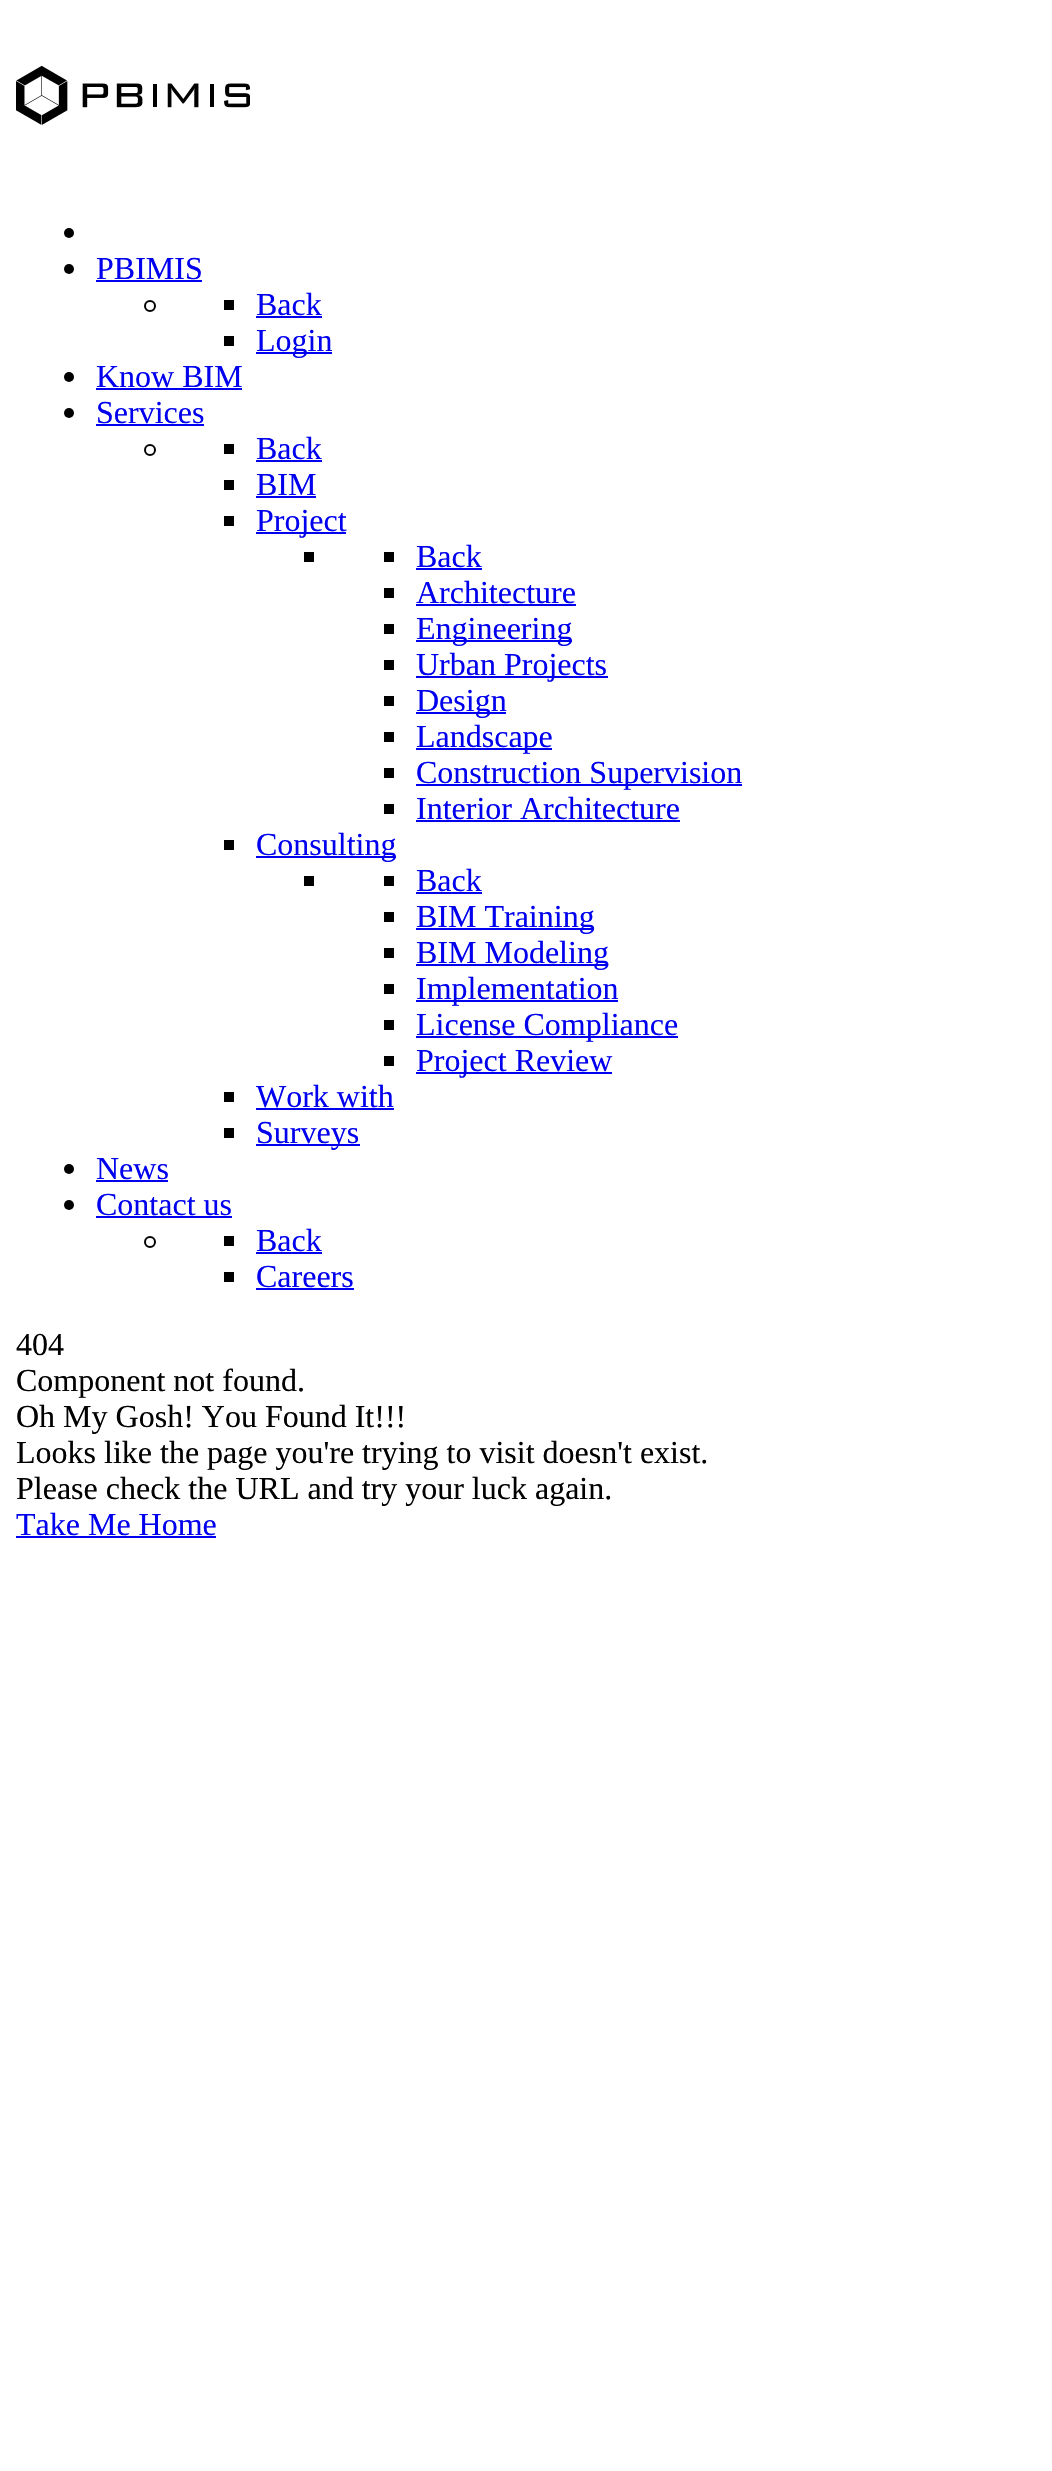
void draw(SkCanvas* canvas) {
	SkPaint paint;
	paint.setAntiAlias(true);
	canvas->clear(0xffffffff);
	canvas->drawImageRect(SkImages::DeferredFromEncodedData(SkData::MakeFromFileName("img1.png")), SkRect::MakeXYWH(16, 65, 234, 60), SkSamplingOptions());
	paint.setColor(0xff000000);
	canvas->drawCircle(69, 233, 5, paint);
	canvas->drawCircle(69, 269, 5, paint);
	SkFont f1(fontMgr->matchFamilyStyle("Liberation Serif", SkFontStyle::Normal()), 32);
	f1.setSubpixel(true);
	paint.setColor(0xff0000ee);
	canvas->drawString("PBIMIS", 96, 279, f1, paint);
	canvas->drawRect(SkRect::MakeXYWH(96, 280, 106, 2), paint);
	paint.setStroke(true);
	paint.setStrokeWidth(2);
	paint.setColor(0xff000000);
	canvas->drawCircle(150, 306, 5, paint);
	paint.setStroke(false);
	canvas->drawRect(SkRect::MakeXYWH(224, 300, 10, 10), paint);
	paint.setColor(0xff0000ee);
	canvas->drawString("Back", 256, 315, f1, paint);
	canvas->drawRect(SkRect::MakeXYWH(256, 316, 66, 2), paint);
	paint.setColor(0xff000000);
	canvas->drawRect(SkRect::MakeXYWH(224, 336, 10, 10), paint);
	paint.setColor(0xff0000ee);
	canvas->drawRect(SkRect::MakeXYWH(256, 352, 76, 2), paint);
	canvas->drawString("Login", 256, 351, f1, paint);
	paint.setColor(0xff000000);
	canvas->drawCircle(69, 377, 5, paint);
	paint.setColor(0xff0000ee);
	canvas->drawString("Know BIM", 96, 387, f1, paint);
	canvas->drawRect(SkRect::MakeXYWH(96, 388, 146, 2), paint);
	paint.setColor(0xff000000);
	canvas->drawCircle(69, 413, 5, paint);
	paint.setColor(0xff0000ee);
	canvas->drawString("Services", 96, 423, f1, paint);
	canvas->drawRect(SkRect::MakeXYWH(96, 424, 108, 2), paint);
	paint.setStroke(true);
	paint.setColor(0xff000000);
	canvas->drawCircle(150, 450, 5, paint);
	paint.setStroke(false);
	canvas->drawRect(SkRect::MakeXYWH(224, 444, 10, 10), paint);
	paint.setColor(0xff0000ee);
	canvas->drawString("Back", 256, 459, f1, paint);
	canvas->drawRect(SkRect::MakeXYWH(256, 460, 66, 2), paint);
	paint.setColor(0xff000000);
	canvas->drawRect(SkRect::MakeXYWH(224, 480, 10, 10), paint);
	paint.setColor(0xff0000ee);
	canvas->drawString("BIM", 256, 495, f1, paint);
	canvas->drawRect(SkRect::MakeXYWH(256, 496, 60, 2), paint);
	paint.setColor(0xff000000);
	canvas->drawRect(SkRect::MakeXYWH(224, 516, 10, 10), paint);
	paint.setColor(0xff0000ee);
	canvas->drawRect(SkRect::MakeXYWH(256, 532, 90, 2), paint);
	canvas->drawString("Project", 256, 531, f1, paint);
	paint.setColor(0xff000000);
	canvas->drawRect(SkRect::MakeXYWH(304, 552, 10, 10), paint);
	canvas->drawRect(SkRect::MakeXYWH(384, 552, 10, 10), paint);
	paint.setColor(0xff0000ee);
	canvas->drawString("Back", 416, 567, f1, paint);
	canvas->drawRect(SkRect::MakeXYWH(416, 568, 66, 2), paint);
	paint.setColor(0xff000000);
	canvas->drawRect(SkRect::MakeXYWH(384, 588, 10, 10), paint);
	paint.setColor(0xff0000ee);
	canvas->drawString("Architecture", 416, 603, f1, paint);
	canvas->drawRect(SkRect::MakeXYWH(416, 604, 160, 2), paint);
	paint.setColor(0xff000000);
	canvas->drawRect(SkRect::MakeXYWH(384, 624, 10, 10), paint);
	paint.setColor(0xff0000ee);
	canvas->drawRect(SkRect::MakeXYWH(416, 640, 156, 2), paint);
	canvas->drawString("Engineering", 416, 639, f1, paint);
	paint.setColor(0xff000000);
	canvas->drawRect(SkRect::MakeXYWH(384, 660, 10, 10), paint);
	paint.setColor(0xff0000ee);
	canvas->drawRect(SkRect::MakeXYWH(416, 676, 192, 2), paint);
	canvas->drawString("Urban Projects", 416, 675, f1, paint);
	paint.setColor(0xff000000);
	canvas->drawRect(SkRect::MakeXYWH(384, 696, 10, 10), paint);
	paint.setColor(0xff0000ee);
	canvas->drawRect(SkRect::MakeXYWH(416, 712, 90, 2), paint);
	canvas->drawString("Design", 416, 711, f1, paint);
	paint.setColor(0xff000000);
	canvas->drawRect(SkRect::MakeXYWH(384, 732, 10, 10), paint);
	paint.setColor(0xff0000ee);
	canvas->drawRect(SkRect::MakeXYWH(416, 748, 136, 2), paint);
	canvas->drawString("Landscape", 416, 747, f1, paint);
	paint.setColor(0xff000000);
	canvas->drawRect(SkRect::MakeXYWH(384, 768, 10, 10), paint);
	paint.setColor(0xff0000ee);
	canvas->drawRect(SkRect::MakeXYWH(416, 784, 326, 2), paint);
	canvas->drawString("Construction Supervision", 416, 783, f1, paint);
	paint.setColor(0xff000000);
	canvas->drawRect(SkRect::MakeXYWH(384, 804, 10, 10), paint);
	paint.setColor(0xff0000ee);
	canvas->drawString("Interior Architecture", 416, 819, f1, paint);
	canvas->drawRect(SkRect::MakeXYWH(416, 820, 264, 2), paint);
	paint.setColor(0xff000000);
	canvas->drawRect(SkRect::MakeXYWH(224, 840, 10, 10), paint);
	paint.setColor(0xff0000ee);
	canvas->drawRect(SkRect::MakeXYWH(256, 856, 140, 2), paint);
	canvas->drawString("Consulting", 256, 855, f1, paint);
	paint.setColor(0xff000000);
	canvas->drawRect(SkRect::MakeXYWH(304, 876, 10, 10), paint);
	canvas->drawRect(SkRect::MakeXYWH(384, 876, 10, 10), paint);
	paint.setColor(0xff0000ee);
	canvas->drawString("Back", 416, 891, f1, paint);
	canvas->drawRect(SkRect::MakeXYWH(416, 892, 66, 2), paint);
	paint.setColor(0xff000000);
	canvas->drawRect(SkRect::MakeXYWH(384, 912, 10, 10), paint);
	paint.setColor(0xff0000ee);
	canvas->drawRect(SkRect::MakeXYWH(416, 928, 178, 2), paint);
	canvas->drawString("BIM Training", 416, 927, f1, paint);
	paint.setColor(0xff000000);
	canvas->drawRect(SkRect::MakeXYWH(384, 948, 10, 10), paint);
	paint.setColor(0xff0000ee);
	canvas->drawRect(SkRect::MakeXYWH(416, 964, 192, 2), paint);
	canvas->drawString("BIM Modeling", 416, 963, f1, paint);
	paint.setColor(0xff000000);
	canvas->drawRect(SkRect::MakeXYWH(384, 984, 10, 10), paint);
	paint.setColor(0xff0000ee);
	canvas->drawRect(SkRect::MakeXYWH(416, 1000, 202, 2), paint);
	canvas->drawString("Implementation", 416, 999, f1, paint);
	paint.setColor(0xff000000);
	canvas->drawRect(SkRect::MakeXYWH(384, 1020, 10, 10), paint);
	paint.setColor(0xff0000ee);
	canvas->drawRect(SkRect::MakeXYWH(416, 1036, 262, 2), paint);
	canvas->drawString("License Compliance", 416, 1035, f1, paint);
	paint.setColor(0xff000000);
	canvas->drawRect(SkRect::MakeXYWH(384, 1056, 10, 10), paint);
	paint.setColor(0xff0000ee);
	canvas->drawRect(SkRect::MakeXYWH(416, 1072, 196, 2), paint);
	canvas->drawString("Project Review", 416, 1071, f1, paint);
	paint.setColor(0xff000000);
	canvas->drawRect(SkRect::MakeXYWH(224, 1092, 10, 10), paint);
	paint.setColor(0xff0000ee);
	canvas->drawString("Work with", 256, 1107, f1, paint);
	canvas->drawRect(SkRect::MakeXYWH(256, 1108, 138, 2), paint);
	paint.setColor(0xff000000);
	canvas->drawRect(SkRect::MakeXYWH(224, 1128, 10, 10), paint);
	paint.setColor(0xff0000ee);
	canvas->drawRect(SkRect::MakeXYWH(256, 1144, 104, 2), paint);
	canvas->drawString("Surveys", 256, 1143, f1, paint);
	paint.setColor(0xff000000);
	canvas->drawCircle(69, 1169, 5, paint);
	paint.setColor(0xff0000ee);
	canvas->drawString("News", 96, 1179, f1, paint);
	canvas->drawRect(SkRect::MakeXYWH(96, 1180, 72, 2), paint);
	paint.setColor(0xff000000);
	canvas->drawCircle(69, 1205, 5, paint);
	paint.setColor(0xff0000ee);
	canvas->drawString("Contact us", 96, 1215, f1, paint);
	canvas->drawRect(SkRect::MakeXYWH(96, 1216, 136, 2), paint);
	paint.setStroke(true);
	paint.setColor(0xff000000);
	canvas->drawCircle(150, 1242, 5, paint);
	paint.setStroke(false);
	canvas->drawRect(SkRect::MakeXYWH(224, 1236, 10, 10), paint);
	paint.setColor(0xff0000ee);
	canvas->drawString("Back", 256, 1251, f1, paint);
	canvas->drawRect(SkRect::MakeXYWH(256, 1252, 66, 2), paint);
	paint.setColor(0xff000000);
	canvas->drawRect(SkRect::MakeXYWH(224, 1272, 10, 10), paint);
	paint.setColor(0xff0000ee);
	canvas->drawString("Careers", 256, 1287, f1, paint);
	canvas->drawRect(SkRect::MakeXYWH(256, 1288, 98, 2), paint);
	paint.setColor(0xff000000);
	canvas->drawString("404", 16, 1355, f1, paint);
	canvas->drawString("Component not found.", 16, 1391, f1, paint);
	canvas->drawString("Oh My Gosh! You Found It!!!", 16, 1427, f1, paint);
	canvas->drawString("Looks like the page you're trying to visit doesn't exist.", 16, 1463, f1, paint);
	canvas->drawString("Please check the URL and try your luck again.", 16, 1499, f1, paint);
	paint.setColor(0xff0000ee);
	canvas->drawString("Take Me Home", 16, 1535, f1, paint);
	canvas->drawRect(SkRect::MakeXYWH(16, 1536, 200, 2), paint);
}
